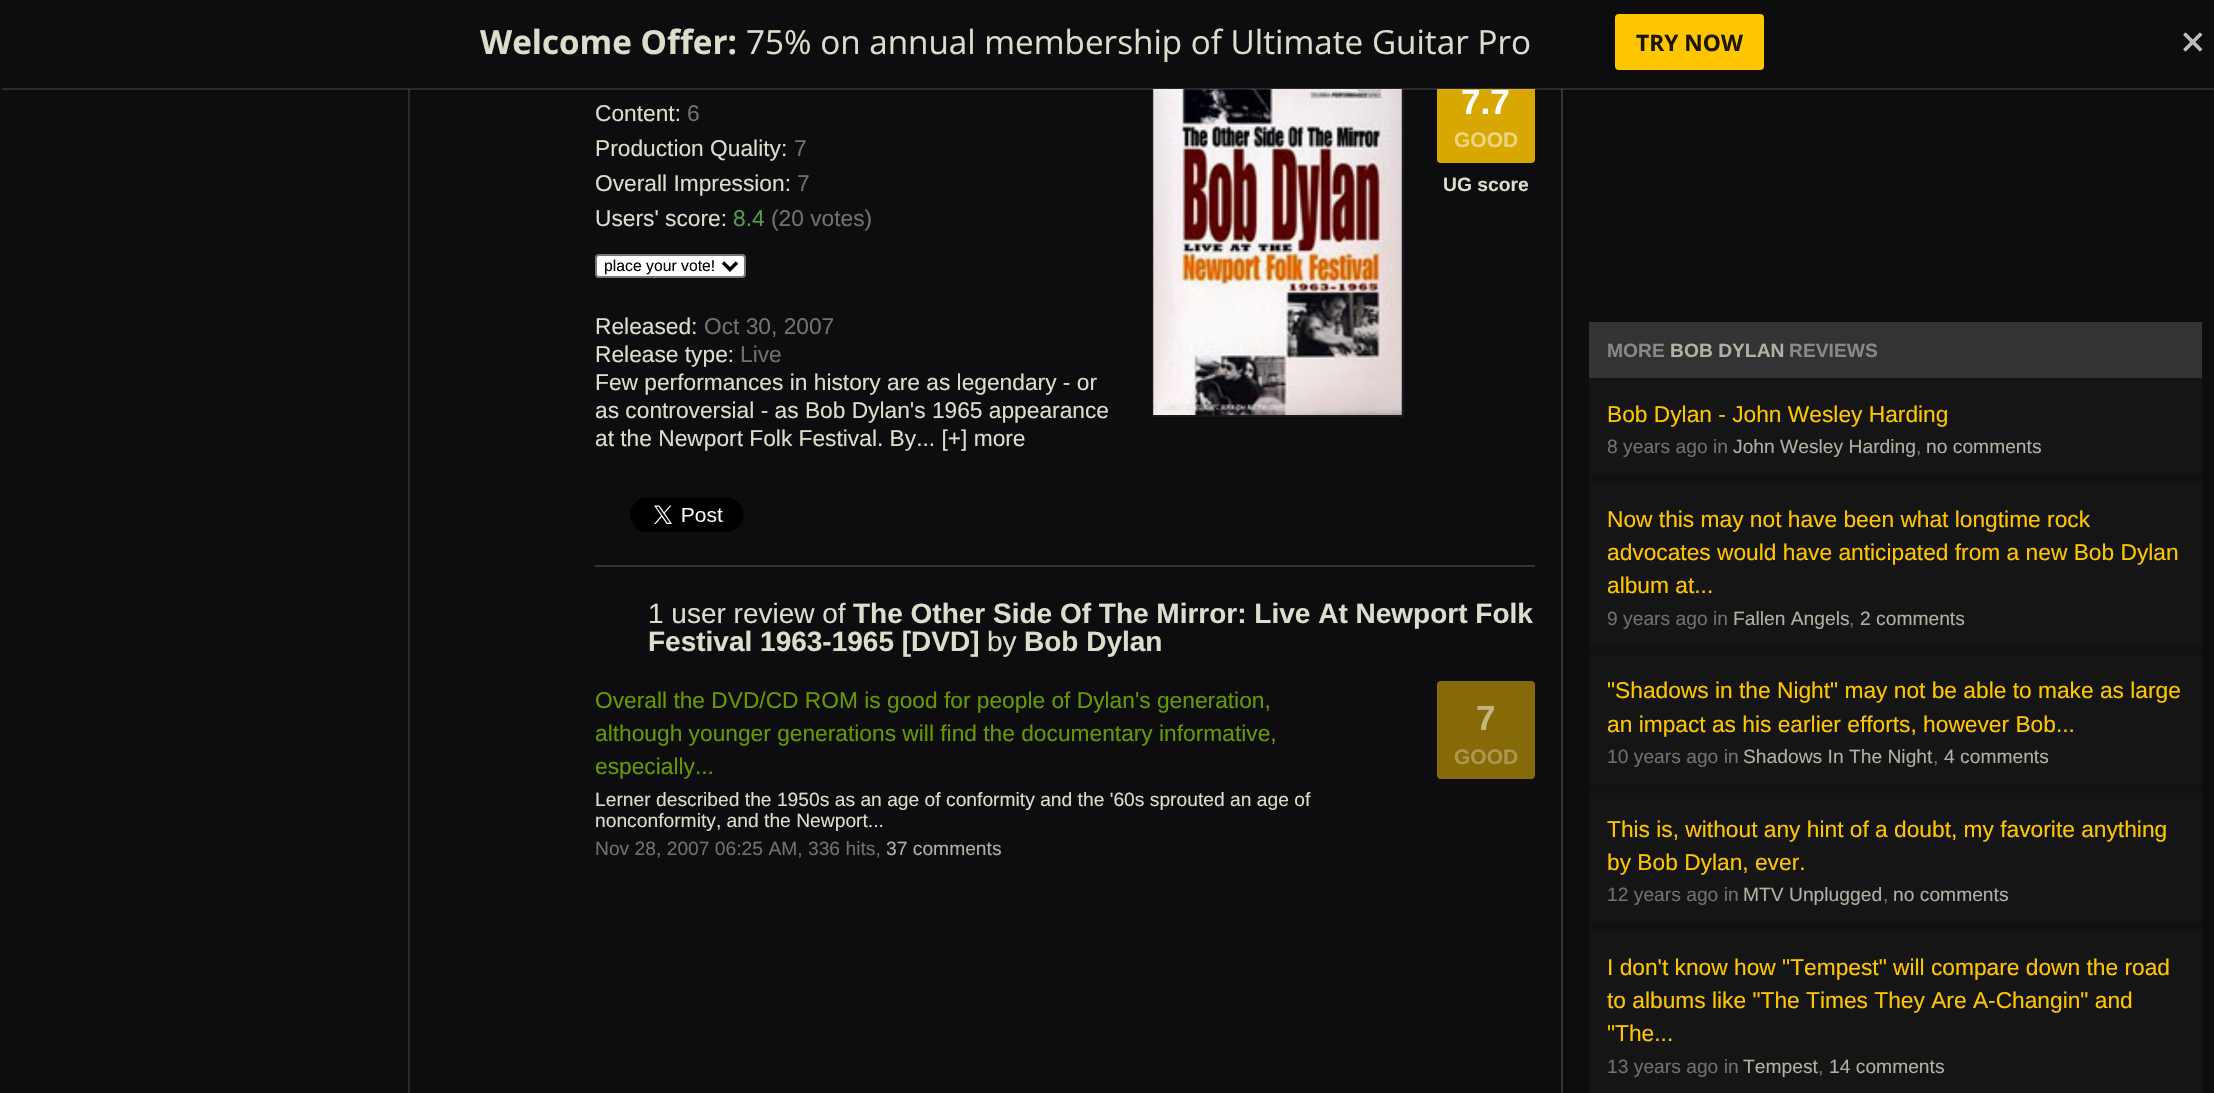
void draw(SkCanvas* canvas) {
	SkPaint paint;
	paint.setAntiAlias(true);
	auto svgPath = [&](const char* data, bool evenOdd = false) {
		SkPath result = *SkParsePath::FromSVGString(data);
		if (evenOdd) result.setFillType(SkPathFillType::kEvenOdd);
		return result;
	};
	canvas->clear(0xff0d0d10);
	paint.setStroke(true);
	paint.setStrokeWidth(2);
	paint.setColor(0xff19191c);
	canvas->drawRect(SkRect::MakeXYWH(1153, 64, 250, 352), paint);
	paint.setStroke(false);
	paint.setColor(0xffd9a800);
	canvas->drawRoundRect(SkRect::MakeXYWH(1437, 65, 98, 98), 4, 4, paint);
	paint.setColor(0xff0d0d10);
	canvas->drawRect(SkRect::MakeXYWH(1152, 63, 383, 26), paint);
	paint.setColor(0xff2a2a2d);
	canvas->drawRect(SkRect::MakeXYWH(408, 89, 2, 1004), paint);
	canvas->drawImageRect(SkImages::DeferredFromEncodedData(SkData::MakeFromFileName("img3.png")), SkRect::MakeXYWH(1153, 89, 249, 326), SkSamplingOptions());
	paint.setColor(0xff333333);
	canvas->drawRect(SkRect::MakeXYWH(1561, 89, 2, 1004), paint);
	paint.setColor(0x1fffffff);
	canvas->drawRect(SkRect::MakeXYWH(2, 88, 2212, 2), paint);
	SkFont f1(fontMgr->matchFamilyStyle("Open Sans", SkFontStyle::Bold()), 33.25);
	f1.setSubpixel(true);
	paint.setColor(0xffddddcc);
	canvas->drawString("Welcome Offer:", 480, 54, f1, paint);
	SkFont f2(fontMgr->matchFamilyStyle("Open Sans", SkFontStyle::Normal()), 33.25);
	f2.setSubpixel(true);
	canvas->drawString("75% on annual membership of Ultimate Guitar Pro", 746, 54, f2, paint);
	paint.setColor(0xffffc600);
	canvas->drawRoundRect(SkRect::MakeXYWH(1615, 14, 149, 56), 4, 4, paint);
	SkFont f3(fontMgr->matchFamilyStyle("Open Sans", SkFontStyle::Bold()), 22.75);
	f3.setSubpixel(true);
	paint.setColor(0xff1a1400);
	canvas->drawString("TRY NOW", 1636, 51, f3, paint);
	canvas->drawImageRect(SkImages::DeferredFromEncodedData(SkData::MakeFromFileName("img1.png")), SkRect::MakeXYWH(2183, 32, 20, 20), SkSamplingOptions());
	SkFont f4(fontMgr->matchFamilyStyle("Liberation Sans", SkFontStyle::Normal()), 22.75);
	f4.setSubpixel(true);
	paint.setColor(0xffddddcc);
	canvas->drawString("Content:", 595, 121, f4, paint);
	paint.setColor(0xff707070);
	canvas->drawString("6", 687, 121, f4, paint);
	paint.setColor(0xffddddcc);
	canvas->drawString("Production Quality:", 595, 156, f4, paint);
	paint.setColor(0xff707070);
	canvas->drawString("7", 794, 156, f4, paint);
	paint.setColor(0xffddddcc);
	canvas->drawString("Overall Impression:", 595, 191, f4, paint);
	paint.setColor(0xff707070);
	canvas->drawString("7", 797, 191, f4, paint);
	paint.setColor(0xffddddcc);
	canvas->drawString("Users' score:", 595, 226, f4, paint);
	paint.setColor(0xff579c48);
	canvas->drawString("8.4", 733, 226, f4, paint);
	paint.setColor(0xff707070);
	canvas->drawString("(20 votes)", 771, 226, f4, paint);
	paint.setColor(0xffffffff);
	canvas->drawRoundRect(SkRect::MakeXYWH(596, 255, 149, 22), 3, 3, paint);
	paint.setStroke(true);
	paint.setColor(0xff767676);
	canvas->drawRoundRect(SkRect::MakeXYWH(596, 255, 149, 22), 3, 3, paint);
	paint.setStrokeWidth(3.5);
	paint.setColor(0xff000000);
	canvas->drawPath(svgPath("M723 262.5L730 269.5L737 262.5"), paint);
	SkFont f5(fontMgr->matchFamilyStyle("Liberation Sans", SkFontStyle::Normal()), 15.75);
	f5.setSubpixel(true);
	paint.setStroke(false);
	canvas->drawString("place your vote!", 604, 271, f5, paint);
	paint.setColor(0xffddddcc);
	canvas->drawString("Released:", 595, 334, f4, paint);
	paint.setColor(0xff707070);
	canvas->drawString("Oct 30, 2007", 704, 334, f4, paint);
	paint.setColor(0xffddddcc);
	canvas->drawString("Release type:", 595, 362, f4, paint);
	paint.setColor(0xff707070);
	canvas->drawString("Live", 740, 362, f4, paint);
	paint.setColor(0xffddddcc);
	canvas->drawString("Few performances in history are as legendary - or", 595, 390, f4, paint);
	canvas->drawString("as controversial - as Bob Dylan's 1965 appearance", 595, 418, f4, paint);
	canvas->drawString("at the Newport Folk Festival. By... [+] more", 595, 446, f4, paint);
	canvas->drawImageRect(SkImages::DeferredFromEncodedData(SkData::MakeFromFileName("img2.png")), SkRect::MakeXYWH(630, 497, 114, 35), SkSamplingOptions());
	SkFont f6(fontMgr->matchFamilyStyle("Liberation Sans", SkFontStyle::Bold()), 35);
	f6.setSubpixel(true);
	paint.setColor(0xffffffff);
	canvas->drawString("7.7", 1461, 114, f6, paint);
	SkFont f7(fontMgr->matchFamilyStyle("Liberation Sans", SkFontStyle::Bold()), 21);
	f7.setSubpixel(true);
	paint.setColor(0xffecd480);
	canvas->drawString("GOOD", 1454, 147, f7, paint);
	SkFont f8(fontMgr->matchFamilyStyle("Liberation Sans", SkFontStyle::Bold()), 19.25);
	f8.setSubpixel(true);
	paint.setColor(0xffddddcc);
	canvas->drawString("UG score", 1443, 191, f8, paint);
	paint.setColor(0xff333333);
	canvas->drawRect(SkRect::MakeXYWH(595, 565, 940, 2), paint);
	SkFont f9(fontMgr->matchFamilyStyle("Liberation Sans", SkFontStyle::Normal()), 28);
	f9.setSubpixel(true);
	paint.setColor(0xffddddcc);
	canvas->drawString("1 user review of", 648, 623, f9, paint);
	SkFont f10(fontMgr->matchFamilyStyle("Liberation Sans", SkFontStyle::Bold()), 28);
	f10.setSubpixel(true);
	canvas->drawString("The Other Side Of The Mirror: Live At Newport Folk", 853, 623, f10, paint);
	canvas->drawString("Festival 1963-1965 [DVD]", 648, 651, f10, paint);
	canvas->drawString("by", 987, 651, f9, paint);
	canvas->drawString("Bob Dylan", 1024, 651, f10, paint);
	paint.setColor(0xff669900);
	canvas->drawString("Overall the DVD/CD ROM is good for people of Dylan's generation,", 595, 708, f4, paint);
	canvas->drawString("although younger generations will find the documentary informative,", 595, 741, f4, paint);
	canvas->drawString("especially...", 595, 774, f4, paint);
	SkFont f11(fontMgr->matchFamilyStyle("Liberation Sans", SkFontStyle::Normal()), 19.25);
	f11.setSubpixel(true);
	paint.setColor(0xffddddcc);
	canvas->drawString("Lerner described the 1950s as an age of conformity and the '60s sprouted an age of", 595, 806, f11, paint);
	canvas->drawString("nonconformity, and the Newport...", 595, 827, f11, paint);
	paint.setColor(0xff707070);
	canvas->drawString("Nov 28, 2007 06:25 AM, 336 hits,", 595, 855, f11, paint);
	paint.setColor(0xffb0b0a3);
	canvas->drawString("37 comments", 886, 855, f11, paint);
	paint.setColor(0xff866a08);
	canvas->drawRoundRect(SkRect::MakeXYWH(1437, 681, 98, 98), 4, 4, paint);
	paint.setColor(0xffc3b584);
	canvas->drawString("7", 1476, 730, f6, paint);
	paint.setColor(0xffaa9752);
	canvas->drawString("GOOD", 1454, 764, f7, paint);
	paint.setColor(0xff333333);
	canvas->drawRect(SkRect::MakeXYWH(1589, 322, 613, 56), paint);
	paint.setColor(0xff888888);
	canvas->drawString("MORE", 1607, 357, f8, paint);
	paint.setColor(0xffb0b0a3);
	canvas->drawString("BOB DYLAN", 1670, 357, f8, paint);
	paint.setColor(0xff888888);
	canvas->drawString("REVIEWS", 1789, 357, f8, paint);
	paint.setColor(0xff151515);
	canvas->drawRect(SkRect::MakeXYWH(1589, 378, 613, 96), paint);
	paint.setColor(0xffffc600);
	canvas->drawString("Bob Dylan - John Wesley Harding", 1607, 422, f4, paint);
	paint.setColor(0xff707070);
	canvas->drawString("8 years ago in", 1607, 453, f11, paint);
	paint.setColor(0xffb0b0a3);
	canvas->drawString("John Wesley Harding", 1733, 453, f11, paint);
	paint.setColor(0xff707070);
	canvas->drawString(",", 1916, 453, f11, paint);
	paint.setColor(0xffb0b0a3);
	canvas->drawString("no comments", 1926, 453, f11, paint);
	paint.setColor(0xff151515);
	canvas->drawRect(SkRect::MakeXYWH(1589, 483, 613, 163), paint);
	paint.setColor(0xff111111);
	canvas->drawRect(SkRect::MakeXYWH(1589, 474, 613, 9), paint);
	paint.setColor(0xffffc600);
	canvas->drawString("Now this may not have been what longtime rock", 1607, 527, f4, paint);
	canvas->drawString("advocates would have anticipated from a new Bob Dylan", 1607, 560, f4, paint);
	canvas->drawString("album at...", 1607, 593, f4, paint);
	paint.setColor(0xff707070);
	canvas->drawString("9 years ago in", 1607, 625, f11, paint);
	paint.setColor(0xffb0b0a3);
	canvas->drawString("Fallen Angels", 1733, 625, f11, paint);
	paint.setColor(0xff707070);
	canvas->drawString(",", 1849, 625, f11, paint);
	paint.setColor(0xffb0b0a3);
	canvas->drawString("2 comments", 1860, 625, f11, paint);
	paint.setColor(0xff151515);
	canvas->drawRect(SkRect::MakeXYWH(1589, 655, 613, 129), paint);
	paint.setColor(0xff111111);
	canvas->drawRect(SkRect::MakeXYWH(1589, 646, 613, 9), paint);
	paint.setColor(0xffffc600);
	canvas->drawString("\"Shadows in the Night\" may not be able to make as large", 1607, 698, f4, paint);
	canvas->drawString("an impact as his earlier efforts, however Bob...", 1607, 732, f4, paint);
	paint.setColor(0xff707070);
	canvas->drawString("10 years ago in", 1607, 763, f11, paint);
	paint.setColor(0xffb0b0a3);
	canvas->drawString("Shadows In The Night", 1743, 763, f11, paint);
	paint.setColor(0xff707070);
	canvas->drawString(",", 1933, 763, f11, paint);
	paint.setColor(0xffb0b0a3);
	canvas->drawString("4 comments", 1944, 763, f11, paint);
	paint.setColor(0xff151515);
	canvas->drawRect(SkRect::MakeXYWH(1589, 793, 613, 129), paint);
	paint.setColor(0xff111111);
	canvas->drawRect(SkRect::MakeXYWH(1589, 784, 613, 9), paint);
	paint.setColor(0xffffc600);
	canvas->drawString("This is, without any hint of a doubt, my favorite anything", 1607, 837, f4, paint);
	canvas->drawString("by Bob Dylan, ever.", 1607, 870, f4, paint);
	paint.setColor(0xff707070);
	canvas->drawString("12 years ago in", 1607, 901, f11, paint);
	paint.setColor(0xffb0b0a3);
	canvas->drawString("MTV Unplugged", 1743, 901, f11, paint);
	paint.setColor(0xff707070);
	canvas->drawString(",", 1883, 901, f11, paint);
	paint.setColor(0xffb0b0a3);
	canvas->drawString("no comments", 1893, 901, f11, paint);
	paint.setColor(0xff151515);
	canvas->drawRect(SkRect::MakeXYWH(1589, 931, 613, 162), paint);
	paint.setColor(0xff111111);
	canvas->drawRect(SkRect::MakeXYWH(1589, 922, 613, 9), paint);
	paint.setColor(0xffffc600);
	canvas->drawString("I don't know how \"Tempest\" will compare down the road", 1607, 975, f4, paint);
	canvas->drawString("to albums like \"The Times They Are A-Changin\" and", 1607, 1008, f4, paint);
	canvas->drawString("\"The...", 1607, 1041, f4, paint);
	paint.setColor(0xff707070);
	canvas->drawString("13 years ago in", 1607, 1073, f11, paint);
	paint.setColor(0xffb0b0a3);
	canvas->drawString("Tempest", 1743, 1073, f11, paint);
	paint.setColor(0xff707070);
	canvas->drawString(",", 1818, 1073, f11, paint);
	paint.setColor(0xffb0b0a3);
	canvas->drawString("14 comments", 1829, 1073, f11, paint);
}
